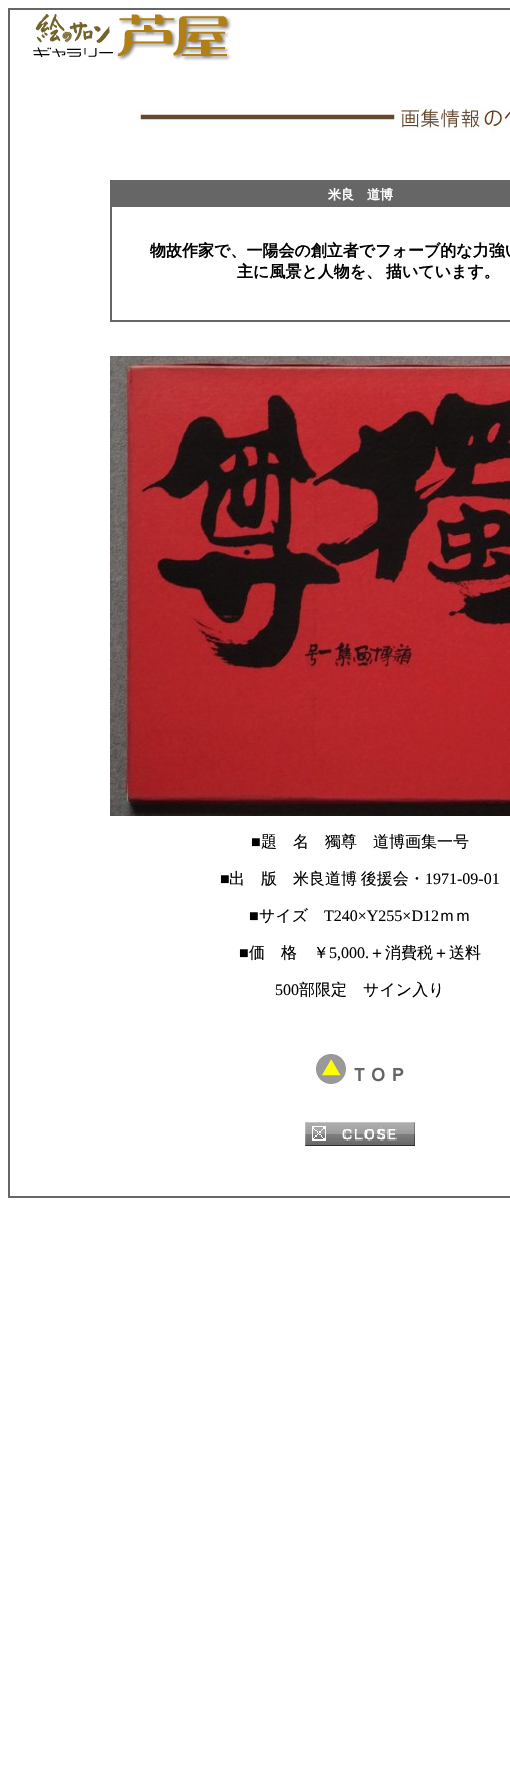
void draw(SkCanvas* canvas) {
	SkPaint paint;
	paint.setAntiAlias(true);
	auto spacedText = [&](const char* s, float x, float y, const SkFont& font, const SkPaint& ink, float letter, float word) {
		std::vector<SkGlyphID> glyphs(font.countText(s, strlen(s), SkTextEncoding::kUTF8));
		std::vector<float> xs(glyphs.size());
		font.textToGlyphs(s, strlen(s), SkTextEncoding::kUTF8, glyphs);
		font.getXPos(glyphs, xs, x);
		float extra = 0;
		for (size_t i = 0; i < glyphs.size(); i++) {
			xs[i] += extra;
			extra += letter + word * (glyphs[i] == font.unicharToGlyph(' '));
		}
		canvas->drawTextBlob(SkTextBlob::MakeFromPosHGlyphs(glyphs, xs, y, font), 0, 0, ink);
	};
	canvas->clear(0xffffffff);
	paint.setStroke(true);
	paint.setStrokeWidth(1);
	paint.setColor(0xff666666);
	canvas->drawRect(SkRect::MakeXYWH(8.5, 8.5, 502, 1189), paint);
	canvas->drawRect(SkRect::MakeXYWH(9.5, 9.5, 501, 1187), paint);
	canvas->drawImageRect(SkImages::DeferredFromEncodedData(SkData::MakeFromFileName("img1.png")), SkRect::MakeXYWH(33, 14, 199, 47), SkSamplingOptions());
	canvas->drawImageRect(SkImages::DeferredFromEncodedData(SkData::MakeFromFileName("img2.png")), SkRect::MakeXYWH(138, 109, 372, 24), SkSamplingOptions());
	canvas->drawRect(SkRect::MakeXYWH(110.5, 180.5, 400, 141), paint);
	canvas->drawRect(SkRect::MakeXYWH(111.5, 181.5, 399, 139), paint);
	paint.setStroke(false);
	canvas->drawRect(SkRect::MakeXYWH(112, 182, 398, 25), paint);
	SkFont f1(fontMgr->matchFamilyStyle("WenQuanYi Zen Hei", SkFontStyle::Bold()), 13);
	f1.setSubpixel(true);
	paint.setColor(0xffffffff);
	canvas->drawString("米良　道博", 328, 199, f1, paint);
	SkFont f2(fontMgr->matchFamilyStyle("WenQuanYi Zen Hei", SkFontStyle::Bold()), 16);
	f2.setSubpixel(true);
	paint.setColor(0xff000000);
	canvas->drawString("物故作家で、一陽会の創立者でフォーブ的な力強い", 150, 256, f2, paint);
	spacedText("主に風景と人物を、 描いています。", 237, 277, f2, paint, 0, -1);
	canvas->drawImageRect(SkImages::DeferredFromEncodedData(SkData::MakeFromFileName("img3.png")), SkRect::MakeXYWH(110, 356, 400, 460), SkSamplingOptions());
	SkFont f3(fontMgr->matchFamilyStyle("Liberation Serif", SkFontStyle::Normal()), 16);
	f3.setSubpixel(true);
	canvas->drawString("■", 251, 847, f3, paint);
	SkFont f4(fontMgr->matchFamilyStyle("WenQuanYi Zen Hei", SkFontStyle(500, SkFontStyle::kNormal_Width, SkFontStyle::kUpright_Slant)), 16);
	f4.setSubpixel(true);
	canvas->drawString("題　名　獨尊　道博画集一号", 261, 847, f4, paint);
	canvas->drawString("■", 220, 884, f3, paint);
	spacedText("出　版　米良道博 後援会・", 229, 884, f4, paint, 0, -1);
	canvas->drawString("1971-09-01", 425, 884, f3, paint);
	canvas->drawString("■", 249, 921, f3, paint);
	canvas->drawString("サイズ", 259, 921, f4, paint);
	canvas->drawString("T240×Y255×D12", 324, 921, f3, paint);
	canvas->drawString("ｍｍ", 439, 921, f4, paint);
	canvas->drawString("■", 239, 958, f3, paint);
	canvas->drawString("価　格　￥", 249, 958, f4, paint);
	canvas->drawString("5,000.", 329, 958, f3, paint);
	canvas->drawString("＋消費税＋送料", 369, 958, f4, paint);
	canvas->drawString("500", 275, 995, f3, paint);
	canvas->drawString("部限定　サイン入り", 299, 995, f4, paint);
	canvas->drawImageRect(SkImages::DeferredFromEncodedData(SkData::MakeFromFileName("img4.png")), SkRect::MakeXYWH(316, 1054, 88, 30), SkSamplingOptions());
	canvas->drawImageRect(SkImages::DeferredFromEncodedData(SkData::MakeFromFileName("img5.png")), SkRect::MakeXYWH(305, 1122, 110, 24), SkSamplingOptions());
}
